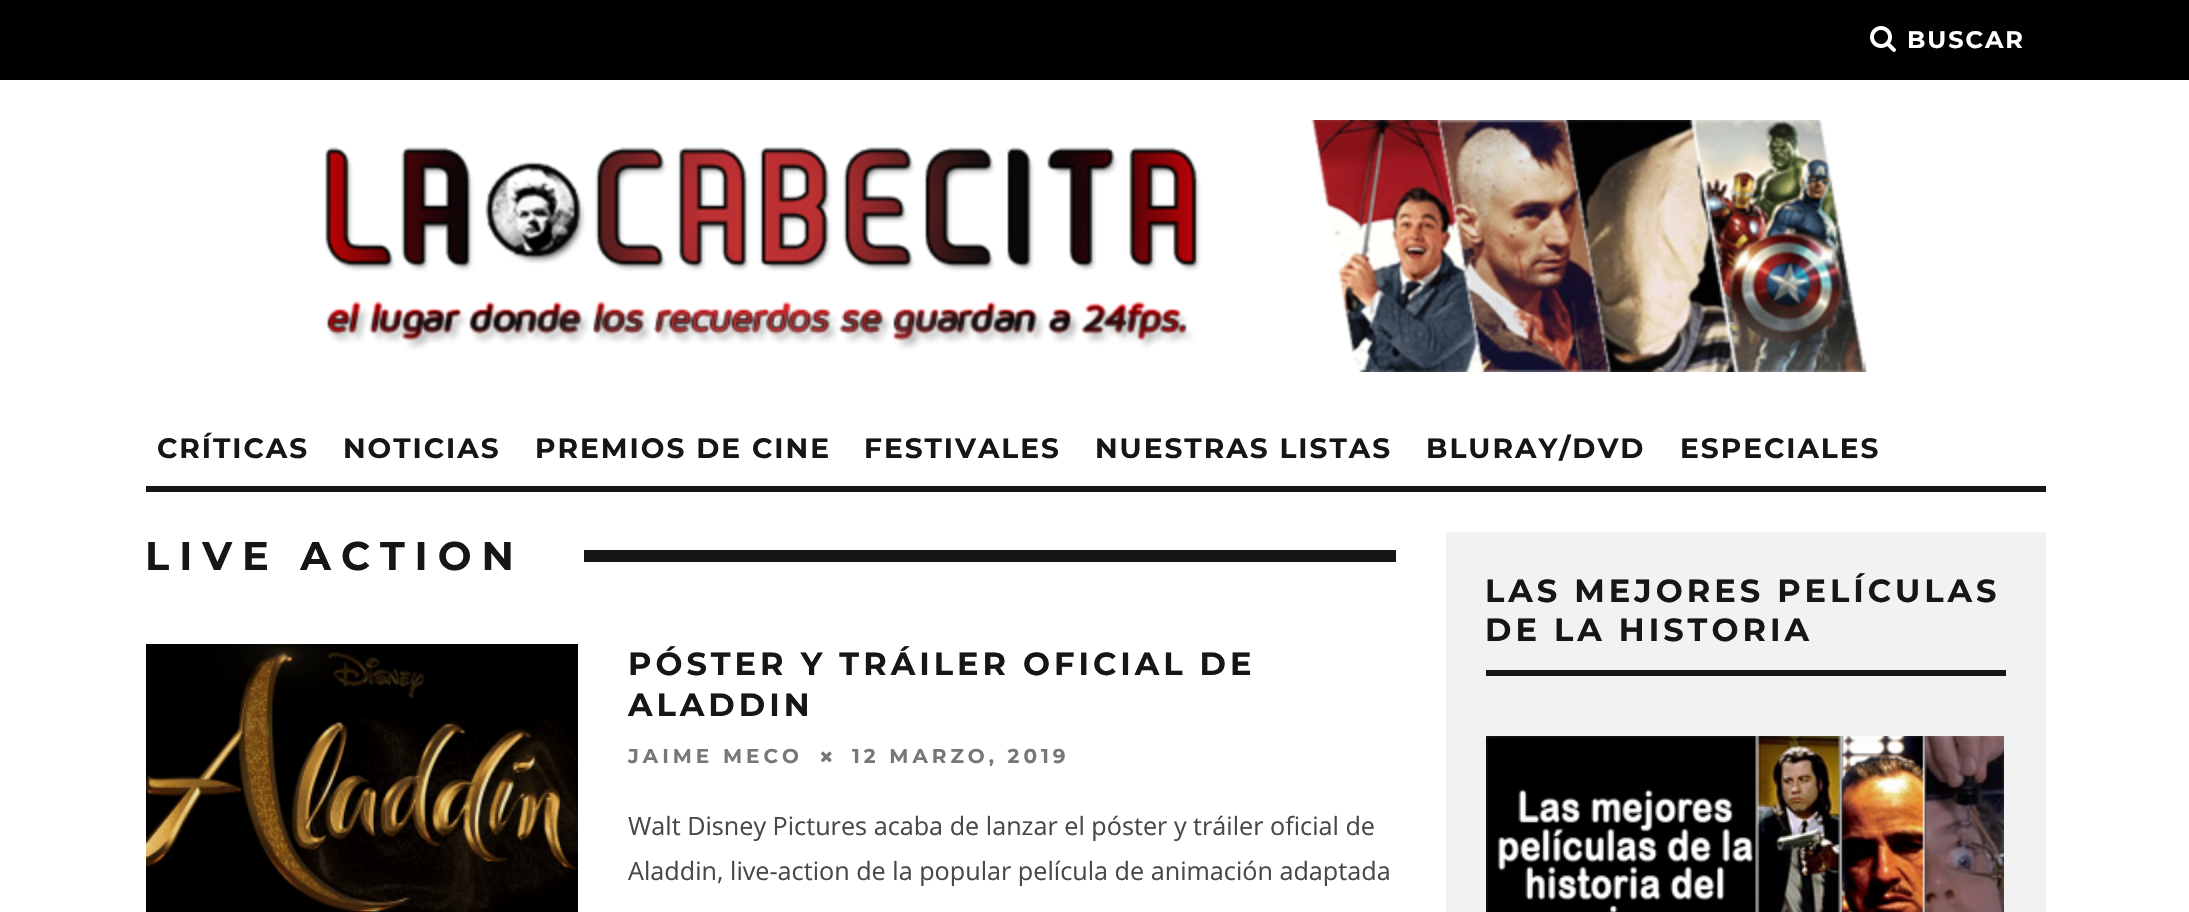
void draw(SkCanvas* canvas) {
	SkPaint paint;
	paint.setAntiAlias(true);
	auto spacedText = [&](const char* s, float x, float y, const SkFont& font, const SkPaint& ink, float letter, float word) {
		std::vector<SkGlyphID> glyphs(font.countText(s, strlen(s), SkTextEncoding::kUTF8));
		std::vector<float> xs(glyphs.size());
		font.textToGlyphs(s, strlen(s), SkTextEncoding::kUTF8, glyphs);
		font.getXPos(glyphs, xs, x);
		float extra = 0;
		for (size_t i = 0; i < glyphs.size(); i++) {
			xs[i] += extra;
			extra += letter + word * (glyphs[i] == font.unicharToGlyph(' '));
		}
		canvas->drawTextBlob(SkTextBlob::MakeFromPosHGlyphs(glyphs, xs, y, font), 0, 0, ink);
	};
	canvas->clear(0xffffffff);
	paint.setColor(0xff010101);
	canvas->drawRect(SkRect::MakeXYWH(0, 0, 2189, 80), paint);
	canvas->drawImageRect(SkImages::DeferredFromEncodedData(SkData::MakeFromFileName("img1.png")), SkRect::MakeXYWH(1870, 26, 26, 26), SkSamplingOptions());
	SkFont f1(fontMgr->matchFamilyStyle("Montserrat", SkFontStyle::Bold()), 24);
	f1.setSubpixel(true);
	paint.setColor(0xffffffff);
	spacedText("BUSCAR", 1907, 48, f1, paint, 2, 0);
	canvas->drawImageRect(SkImages::DeferredFromEncodedData(SkData::MakeFromFileName("img2.png")), SkRect::MakeXYWH(325, 120, 1542, 252), SkSamplingOptions());
	paint.setColor(0xff161616);
	canvas->drawRect(SkRect::MakeXYWH(146, 486, 1900, 6), paint);
	SkFont f2(fontMgr->matchFamilyStyle("Montserrat", SkFontStyle::Bold()), 28);
	f2.setSubpixel(true);
	spacedText("CRÍTICAS", 157, 458, f2, paint, 2, 0);
	spacedText("NOTICIAS", 343, 458, f2, paint, 2, 0);
	spacedText("PREMIOS DE CINE", 535, 458, f2, paint, 2, 0);
	spacedText("FESTIVALES", 864, 458, f2, paint, 2, 0);
	spacedText("NUESTRAS LISTAS", 1095, 458, f2, paint, 2, 0);
	spacedText("BLURAY/DVD", 1426, 458, f2, paint, 2, 0);
	spacedText("ESPECIALES", 1680, 458, f2, paint, 2, 0);
	SkFont f3(fontMgr->matchFamilyStyle("Montserrat", SkFontStyle::Bold()), 40);
	f3.setSubpixel(true);
	spacedText("LIVE ACTION", 145, 570, f3, paint, 10, 0);
	canvas->drawRect(SkRect::MakeXYWH(584, 550, 812, 12), paint);
	canvas->drawImageRect(SkImages::DeferredFromEncodedData(SkData::MakeFromFileName("img3.png")), SkRect::MakeXYWH(146, 644, 432, 268), SkSamplingOptions());
	SkFont f4(fontMgr->matchFamilyStyle("Montserrat", SkFontStyle::Bold()), 32);
	f4.setSubpixel(true);
	spacedText("PÓSTER Y TRÁILER OFICIAL DE", 628, 675, f4, paint, 4, 0);
	spacedText("ALADDIN", 628, 716, f4, paint, 4, 0);
	SkFont f5(fontMgr->matchFamilyStyle("Montserrat", SkFontStyle::Bold()), 20);
	f5.setSubpixel(true);
	paint.setColor(0xff777777);
	spacedText("JAIME MECO", 628, 763, f5, paint, 4, 0);
	canvas->drawImageRect(SkImages::DeferredFromEncodedData(SkData::MakeFromFileName("img4.png")), SkRect::MakeXYWH(821, 751, 11, 12), SkSamplingOptions());
	spacedText("12 MARZO, 2019", 852, 763, f5, paint, 4, 0);
	SkFont f6(fontMgr->matchFamilyStyle("Open Sans", SkFontStyle::Normal()), 25.2);
	f6.setSubpixel(true);
	paint.setColor(0xff484848);
	canvas->drawString("Walt Disney Pictures acaba de lanzar el póster y tráiler oficial de", 628, 835, f6, paint);
	canvas->drawString("Aladdin, live-action de la popular película de animación adaptada", 628, 880, f6, paint);
	paint.setColor(0xfff2f2f2);
	canvas->drawRect(SkRect::MakeXYWH(1446, 532, 600, 380), paint);
	paint.setColor(0xff161616);
	canvas->drawRect(SkRect::MakeXYWH(1486, 670, 520, 6), paint);
	spacedText("LAS MEJORES PELÍCULAS", 1485, 602, f4, paint, 4, 0);
	spacedText("DE LA HISTORIA", 1485, 641, f4, paint, 4, 0);
	canvas->drawImageRect(SkImages::DeferredFromEncodedData(SkData::MakeFromFileName("img5.png")), SkRect::MakeXYWH(1486, 736, 518, 176), SkSamplingOptions());
}
